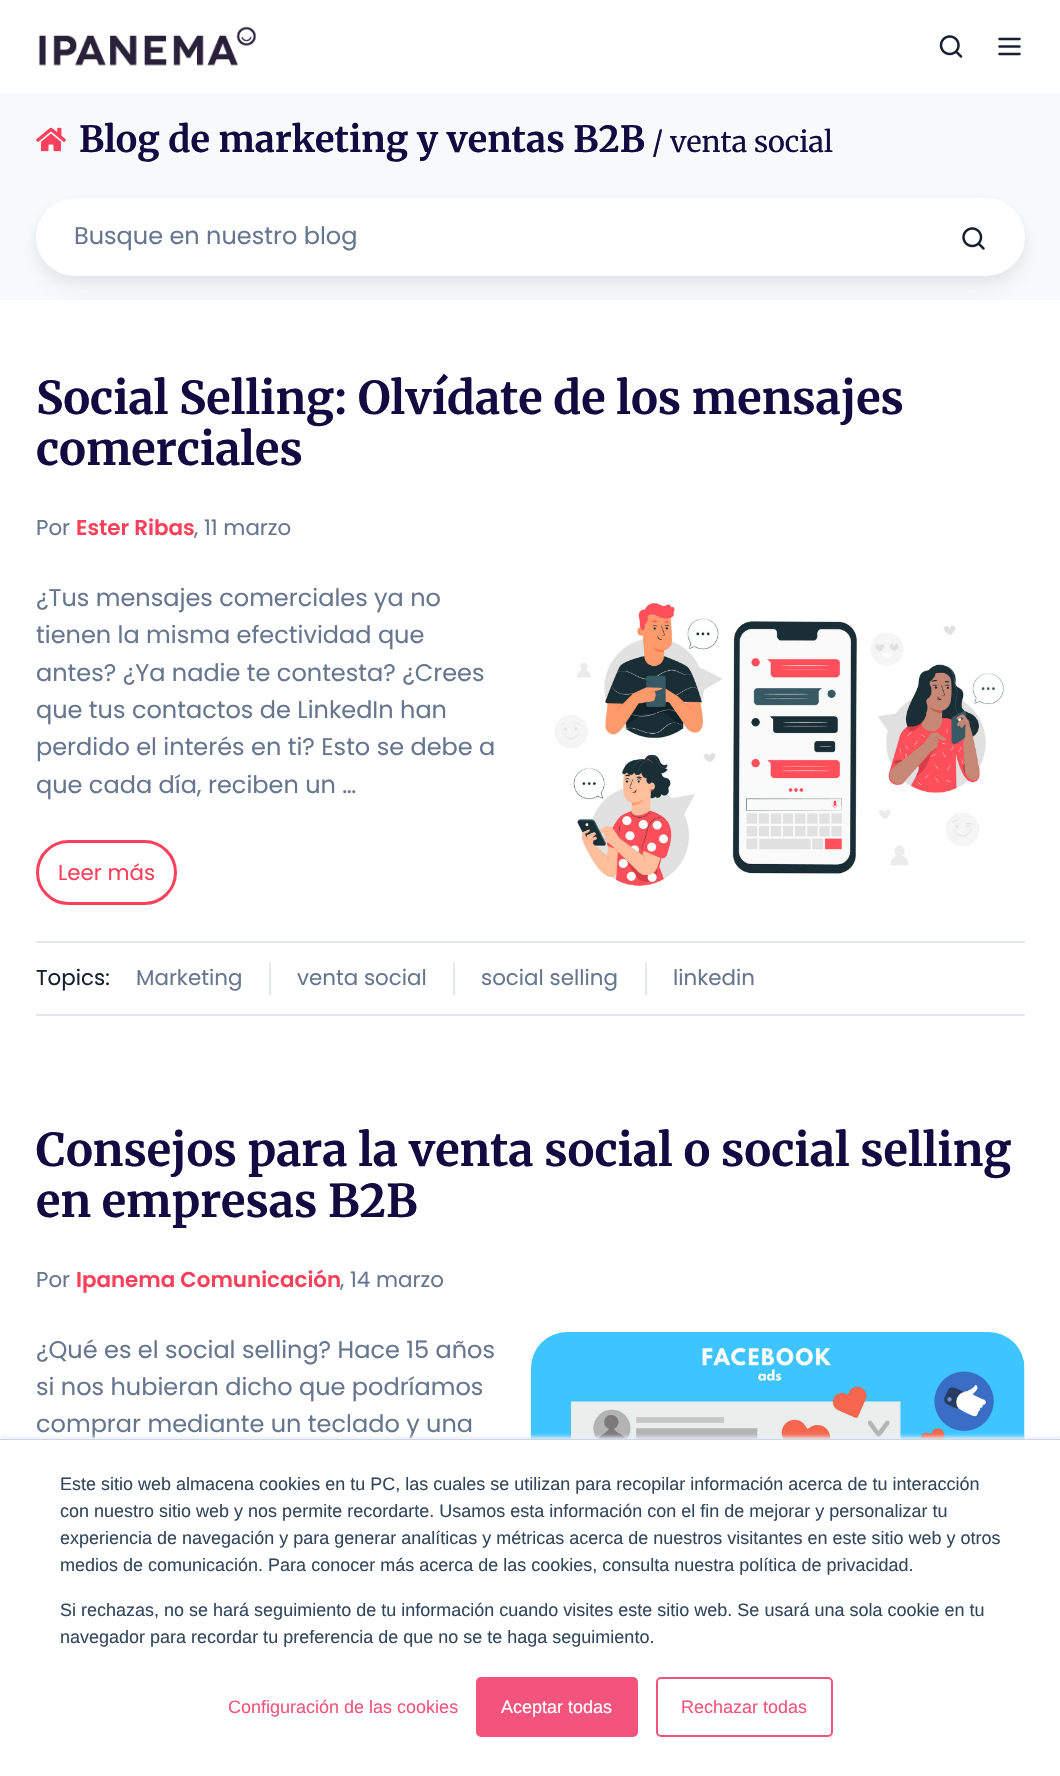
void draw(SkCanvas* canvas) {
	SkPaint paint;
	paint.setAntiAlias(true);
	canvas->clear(0xffffffff);
	canvas->drawImageRect(SkImages::DeferredFromEncodedData(SkData::MakeFromFileName("img1.png")), SkRect::MakeXYWH(38, 26, 218, 40), SkSamplingOptions());
	canvas->drawImageRect(SkImages::DeferredFromEncodedData(SkData::MakeFromFileName("img2.png")), SkRect::MakeXYWH(939, 35, 24, 23), SkSamplingOptions());
	canvas->drawImageRect(SkImages::DeferredFromEncodedData(SkData::MakeFromFileName("img3.png")), SkRect::MakeXYWH(998, 37, 23, 19), SkSamplingOptions());
	paint.setColor(0xfff8f9fb);
	canvas->drawRect(SkRect::MakeXYWH(0, 93, 1060, 207), paint);
	canvas->drawImageRect(SkImages::DeferredFromEncodedData(SkData::MakeFromFileName("img4.png")), SkRect::MakeXYWH(36, 127, 30, 25), SkSamplingOptions());
	SkFont f1(fontMgr->matchFamilyStyle("Merriweather", SkFontStyle::Bold()), 36);
	f1.setSubpixel(true);
	paint.setColor(0xff130a41);
	canvas->drawString("Blog de marketing y ventas B2B", 79, 152, f1, paint);
	SkFont f2(fontMgr->matchFamilyStyle("Merriweather", SkFontStyle::Normal()), 28.75);
	f2.setSubpixel(true);
	canvas->drawString("/ venta social", 652, 152, f2, paint);
	paint.setColor(0x0d151f30);
	paint.setMaskFilter(SkMaskFilter::MakeBlur(kNormal_SkBlurStyle, 6));
	canvas->drawRoundRect(SkRect::MakeXYWH(36, 204, 989, 78), 39, 39, paint);
	paint.setMaskFilter(nullptr);
	paint.setMaskFilter(SkMaskFilter::MakeBlur(kNormal_SkBlurStyle, 12));
	canvas->drawRoundRect(SkRect::MakeXYWH(36, 210, 989, 78), 39, 39, paint);
	paint.setMaskFilter(nullptr);
	paint.setColor(0xffffffff);
	canvas->drawRoundRect(SkRect::MakeXYWH(37, 199, 987, 76), 38, 38, paint);
	paint.setStroke(true);
	paint.setStrokeWidth(2);
	canvas->drawRoundRect(SkRect::MakeXYWH(37, 199, 987, 76), 38, 38, paint);
	SkFont f3(fontMgr->matchFamilyStyle("Poppins", SkFontStyle::Normal()), 24);
	f3.setSubpixel(true);
	paint.setStroke(false);
	paint.setColor(0xff66768e);
	canvas->drawString("Busque en nuestro blog", 74, 244, f3, paint);
	canvas->drawImageRect(SkImages::DeferredFromEncodedData(SkData::MakeFromFileName("img5.png")), SkRect::MakeXYWH(962, 227, 23, 23), SkSamplingOptions());
	SkFont f4(fontMgr->matchFamilyStyle("Merriweather", SkFontStyle::Bold()), 45.1);
	f4.setSubpixel(true);
	paint.setColor(0xff130a41);
	canvas->drawString("Social Selling: Olvídate de los mensajes", 36, 414, f4, paint);
	canvas->drawString("comerciales", 36, 465, f4, paint);
	SkFont f5(fontMgr->matchFamilyStyle("Poppins", SkFontStyle::Normal()), 21.4);
	f5.setSubpixel(true);
	paint.setColor(0xff66768e);
	canvas->drawString("Por", 36, 535, f5, paint);
	SkFont f6(fontMgr->matchFamilyStyle("Poppins", SkFontStyle(600, SkFontStyle::kNormal_Width, SkFontStyle::kUpright_Slant)), 21.4);
	f6.setSubpixel(true);
	paint.setColor(0xfffb405c);
	canvas->drawString("Ester Ribas", 76, 535, f6, paint);
	paint.setColor(0xff66768e);
	canvas->drawString(", 11 marzo", 194, 535, f5, paint);
	canvas->drawString("¿Tus mensajes comerciales ya no", 36, 606, f3, paint);
	canvas->drawString("tienen la misma efectividad que", 36, 643, f3, paint);
	canvas->drawString("antes? ¿Ya nadie te contesta? ¿Crees", 36, 681, f3, paint);
	canvas->drawString("que tus contactos de LinkedIn han", 36, 718, f3, paint);
	canvas->drawString("perdido el interés en ti? Esto se debe a", 36, 755, f3, paint);
	canvas->drawString("que cada día, reciben un …", 36, 793, f3, paint);
	canvas->drawImageRect(SkImages::DeferredFromEncodedData(SkData::MakeFromFileName("img6.png")), SkRect::MakeXYWH(554, 602, 450, 284), SkSamplingOptions());
	paint.setStroke(true);
	paint.setStrokeWidth(3);
	paint.setColor(0xfffb405c);
	canvas->drawRoundRect(SkRect::MakeXYWH(37.5, 841.5, 138, 62), 31, 31, paint);
	paint.setStroke(false);
	canvas->drawString("Leer más", 58, 880, f5, paint);
	paint.setColor(0xffe3e6ec);
	canvas->drawRect(SkRect::MakeXYWH(36, 941, 989, 2), paint);
	canvas->drawRect(SkRect::MakeXYWH(36, 1014, 989, 2), paint);
	paint.setColor(0xff151f30);
	canvas->drawString("Topics:", 36, 985, f5, paint);
	paint.setColor(0xffe3e6ec);
	canvas->drawRect(SkRect::MakeXYWH(269, 963, 2, 32), paint);
	paint.setColor(0xff66768e);
	canvas->drawString("Marketing", 136, 985, f5, paint);
	paint.setColor(0xffe3e6ec);
	canvas->drawRect(SkRect::MakeXYWH(453, 963, 2, 32), paint);
	paint.setColor(0xff66768e);
	canvas->drawString("venta social", 297, 985, f5, paint);
	paint.setColor(0xffe3e6ec);
	canvas->drawRect(SkRect::MakeXYWH(645, 963, 2, 32), paint);
	paint.setColor(0xff66768e);
	canvas->drawString("social selling", 481, 985, f5, paint);
	canvas->drawString("linkedin", 673, 985, f5, paint);
	paint.setColor(0xff130a41);
	canvas->drawString("Consejos para la venta social o social selling", 36, 1166, f4, paint);
	canvas->drawString("en empresas B2B", 36, 1217, f4, paint);
	paint.setColor(0xff66768e);
	canvas->drawString("Por", 36, 1287, f5, paint);
	paint.setColor(0xfffb405c);
	canvas->drawString("Ipanema Comunicación", 76, 1287, f6, paint);
	paint.setColor(0xff66768e);
	canvas->drawString(", 14 marzo", 340, 1287, f5, paint);
	canvas->drawString("¿Qué es el social selling? Hace 15 años", 36, 1358, f3, paint);
	canvas->drawString("si nos hubieran dicho que podríamos", 36, 1395, f3, paint);
	canvas->drawString("comprar mediante un teclado y una", 36, 1432, f3, paint);
	canvas->drawImageRect(SkImages::DeferredFromEncodedData(SkData::MakeFromFileName("img7.png")), SkRect::MakeXYWH(531, 1332, 494, 107), SkSamplingOptions());
	paint.setColor(0xffeaf0f6);
	paint.setMaskFilter(SkMaskFilter::MakeBlur(kNormal_SkBlurStyle, 2));
	canvas->drawRect(SkRect::MakeXYWH(0, 1437, 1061, 338), paint);
	paint.setMaskFilter(nullptr);
	paint.setColor(0xffcbd6e2);
	canvas->drawRect(SkRect::MakeXYWH(0, 1439, 1060, 1), paint);
	paint.setColor(0xffffffff);
	canvas->drawRect(SkRect::MakeXYWH(0, 1440, 1060, 336), paint);
	SkFont f7(fontMgr->matchFamilyStyle("Liberation Sans", SkFontStyle::Normal()), 18);
	f7.setSubpixel(true);
	paint.setColor(0xff33475b);
	canvas->drawString("Este sitio web almacena cookies en tu PC, las cuales se utilizan para recopilar información acerca de tu interacción", 60, 1490, f7, paint);
	canvas->drawString("con nuestro sitio web y nos permite recordarte. Usamos esta información con el fin de mejorar y personalizar tu", 60, 1517, f7, paint);
	canvas->drawString("experiencia de navegación y para generar analíticas y métricas acerca de nuestros visitantes en este sitio web y otros", 60, 1544, f7, paint);
	canvas->drawString("medios de comunicación. Para conocer más acerca de las cookies, consulta nuestra política de privacidad.", 60, 1571, f7, paint);
	canvas->drawString("Si rechazas, no se hará seguimiento de tu información cuando visites este sitio web. Se usará una sola cookie en tu", 60, 1616, f7, paint);
	canvas->drawString("navegador para recordar tu preferencia de que no se te haga seguimiento.", 60, 1643, f7, paint);
	paint.setColor(0xfff2547d);
	canvas->drawString("Configuración de las cookies", 228, 1713, f7, paint);
	canvas->drawRoundRect(SkRect::MakeXYWH(477, 1678, 160, 58), 4, 4, paint);
	paint.setStroke(true);
	paint.setStrokeWidth(2);
	canvas->drawRoundRect(SkRect::MakeXYWH(477, 1678, 160, 58), 4, 4, paint);
	paint.setStroke(false);
	paint.setColor(0xffffffff);
	canvas->drawString("Aceptar todas", 501, 1713, f7, paint);
	paint.setStroke(true);
	paint.setColor(0xfff2547d);
	canvas->drawRoundRect(SkRect::MakeXYWH(657, 1678, 175, 58), 4, 4, paint);
	paint.setStroke(false);
	canvas->drawString("Rechazar todas", 681, 1713, f7, paint);
}
